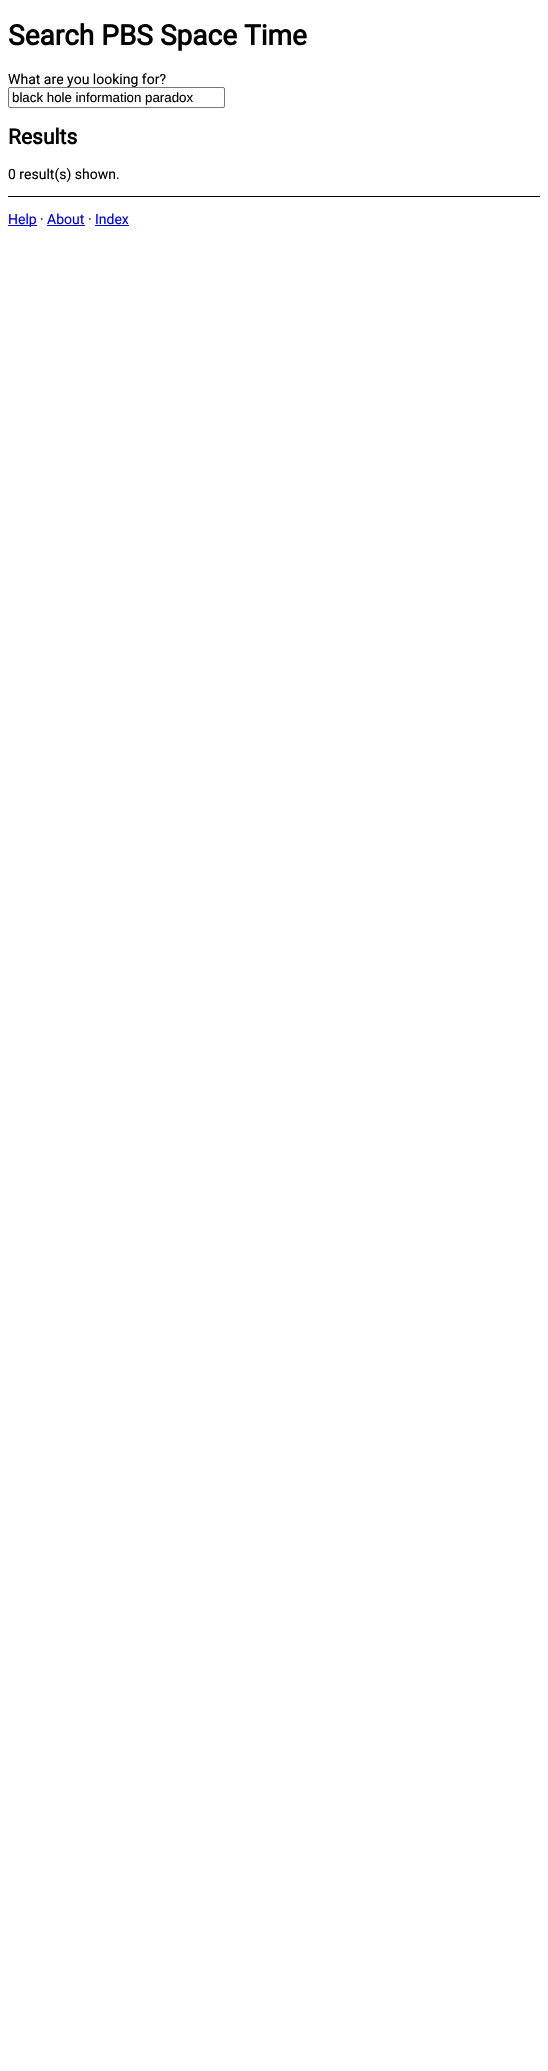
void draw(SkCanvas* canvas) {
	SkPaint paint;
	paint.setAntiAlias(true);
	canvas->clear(0xffffffff);
	SkFont f1(fontMgr->matchFamilyStyle("Roboto", SkFontStyle::Bold()), 28);
	f1.setSubpixel(true);
	paint.setColor(0xff000000);
	canvas->drawString("Search PBS Space Time", 8, 45, f1, paint);
	SkFont f2(fontMgr->matchFamilyStyle("Roboto", SkFontStyle::Normal()), 14);
	f2.setSubpixel(true);
	canvas->drawString("What are you looking for?", 8, 84, f2, paint);
	paint.setStroke(true);
	paint.setStrokeWidth(1);
	paint.setColor(0xff767676);
	canvas->drawRoundRect(SkRect::MakeXYWH(8.5, 87.5, 216, 20), 1.5, 1.5, paint);
	SkFont f3(fontMgr->matchFamilyStyle("Liberation Sans", SkFontStyle::Normal()), 13.3);
	f3.setSubpixel(true);
	paint.setStroke(false);
	paint.setColor(0xff000000);
	canvas->drawString("black hole information paradox", 12, 102, f3, paint);
	SkFont f4(fontMgr->matchFamilyStyle("Roboto", SkFontStyle::Bold()), 21);
	f4.setSubpixel(true);
	canvas->drawString("Results", 8, 144, f4, paint);
	canvas->drawString("0 result(s) shown.", 8, 179, f2, paint);
	canvas->drawRect(SkRect::MakeXYWH(8, 196, 532, 1), paint);
	paint.setColor(0xff0000ee);
	canvas->drawRect(SkRect::MakeXYWH(8, 225, 29, 1), paint);
	canvas->drawString("Help", 8, 224, f2, paint);
	paint.setColor(0xff000000);
	canvas->drawString("·", 40, 224, f2, paint);
	paint.setColor(0xff0000ee);
	canvas->drawString("About", 47, 224, f2, paint);
	canvas->drawRect(SkRect::MakeXYWH(47, 225, 38, 1), paint);
	paint.setColor(0xff000000);
	canvas->drawString("·", 88, 224, f2, paint);
	paint.setColor(0xff0000ee);
	canvas->drawString("Index", 95, 224, f2, paint);
	canvas->drawRect(SkRect::MakeXYWH(95, 225, 34, 1), paint);
}
